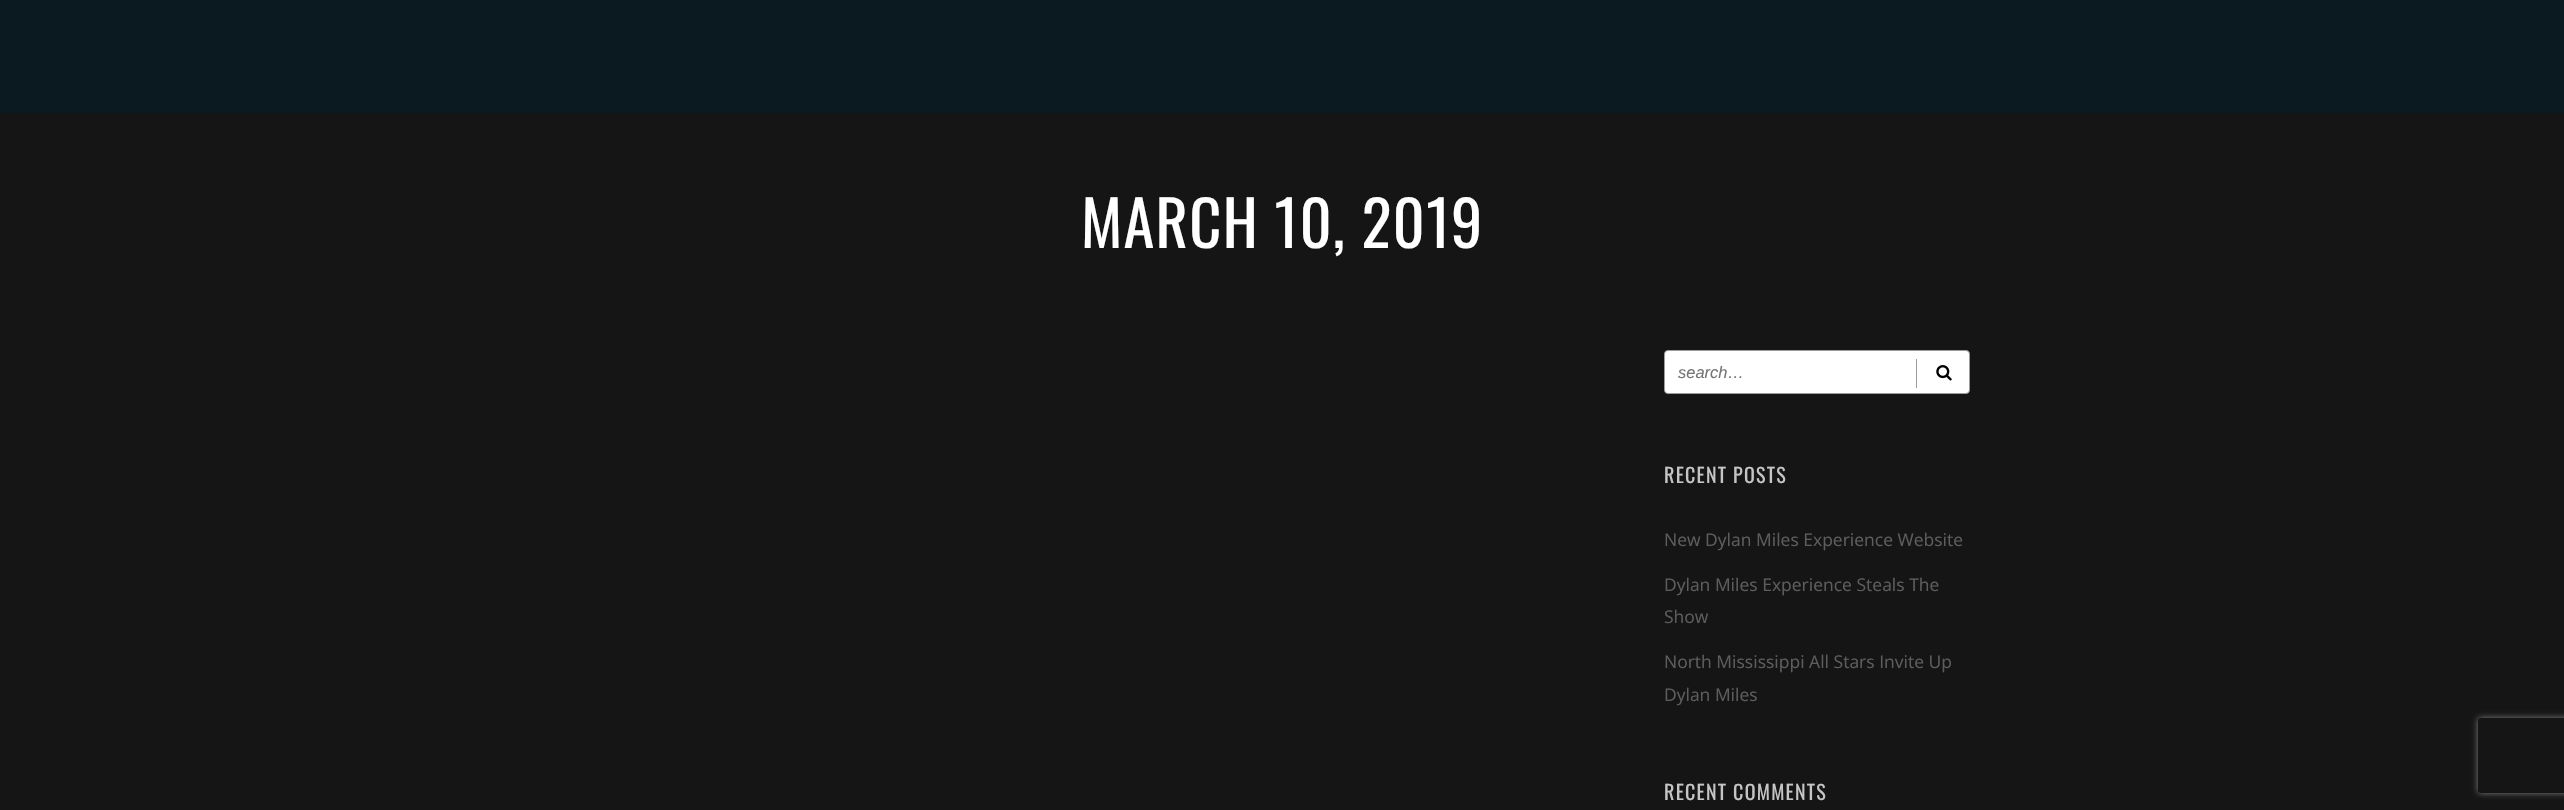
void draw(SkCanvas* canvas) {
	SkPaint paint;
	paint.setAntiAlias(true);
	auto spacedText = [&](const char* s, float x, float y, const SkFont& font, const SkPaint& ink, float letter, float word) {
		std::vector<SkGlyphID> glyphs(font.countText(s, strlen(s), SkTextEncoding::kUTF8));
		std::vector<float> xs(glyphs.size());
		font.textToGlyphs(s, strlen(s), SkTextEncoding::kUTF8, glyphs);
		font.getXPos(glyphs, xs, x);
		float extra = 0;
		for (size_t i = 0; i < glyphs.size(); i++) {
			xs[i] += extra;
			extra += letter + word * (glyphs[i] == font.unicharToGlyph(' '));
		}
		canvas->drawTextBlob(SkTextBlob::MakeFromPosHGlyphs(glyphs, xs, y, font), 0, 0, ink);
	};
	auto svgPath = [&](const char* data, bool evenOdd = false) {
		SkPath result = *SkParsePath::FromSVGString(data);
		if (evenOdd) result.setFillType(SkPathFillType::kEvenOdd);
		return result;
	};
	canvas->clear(0xff151515);
	paint.setColor(0xff0b1921);
	canvas->drawRect(SkRect::MakeXYWH(0, 0, 2564, 113), paint);
	SkFont f1(fontMgr->matchFamilyStyle("Oswald", SkFontStyle::Normal()), 62.5);
	f1.setSubpixel(true);
	paint.setColor(0xffffffff);
	spacedText("MARCH 10, 2019", 1081, 248, f1, paint, 1.25, 0);
	canvas->drawRoundRect(SkRect::MakeXYWH(1664.5, 350.5, 305, 43), 3.5, 3.5, paint);
	paint.setStroke(true);
	paint.setStrokeWidth(1);
	paint.setColor(0xff9c9c9c);
	canvas->drawRoundRect(SkRect::MakeXYWH(1664.5, 350.5, 305, 43), 3.5, 3.5, paint);
	SkFont f2(fontMgr->matchFamilyStyle("Liberation Sans", SkFontStyle::Italic()), 16.5);
	f2.setSubpixel(true);
	paint.setStroke(false);
	paint.setColor(0xff757575);
	canvas->drawString("search…", 1678, 378, f2, paint);
	paint.setColor(0xff9c9c9c);
	canvas->drawRect(SkRect::MakeXYWH(1916, 359, 1, 29), paint);
	canvas->drawImageRect(SkImages::DeferredFromEncodedData(SkData::MakeFromFileName("img1.png")), SkRect::MakeXYWH(1936, 365, 16, 16), SkSamplingOptions());
	SkFont f3(fontMgr->matchFamilyStyle("Oswald", SkFontStyle::Normal()), 20);
	f3.setSubpixel(true);
	paint.setColor(0xffc5c5c5);
	spacedText("RECENT POSTS", 1664, 483, f3, paint, 1.25, 0);
	SkFont f4(fontMgr->matchFamilyStyle("Open Sans", SkFontStyle::Normal()), 17.5);
	f4.setSubpixel(true);
	paint.setColor(0xff5d5d5d);
	canvas->drawString("New Dylan Miles Experience Website", 1664, 546, f4, paint);
	canvas->drawString("Dylan Miles Experience Steals The", 1664, 591, f4, paint);
	canvas->drawString("Show", 1664, 623, f4, paint);
	canvas->drawString("North Mississippi All Stars Invite Up", 1664, 668, f4, paint);
	canvas->drawString("Dylan Miles", 1664, 701, f4, paint);
	paint.setColor(0xffc5c5c5);
	spacedText("RECENT COMMENTS", 1664, 800, f3, paint, 1.25, 0);
	canvas->save();
	canvas->clipPath(svgPath("M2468 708H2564V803H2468ZM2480.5 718H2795.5C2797 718 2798 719 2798 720.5V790.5C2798 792 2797 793 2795.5 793H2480.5C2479 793 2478 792 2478 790.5V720.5C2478 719 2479 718 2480.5 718Z", true), true);
	paint.setColor(0xff808080);
	paint.setMaskFilter(SkMaskFilter::MakeBlur(kNormal_SkBlurStyle, 3));
	canvas->drawRoundRect(SkRect::MakeXYWH(2478, 718, 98, 75), 2.5, 2.5, paint);
	paint.setMaskFilter(nullptr);
	canvas->restore();
}
